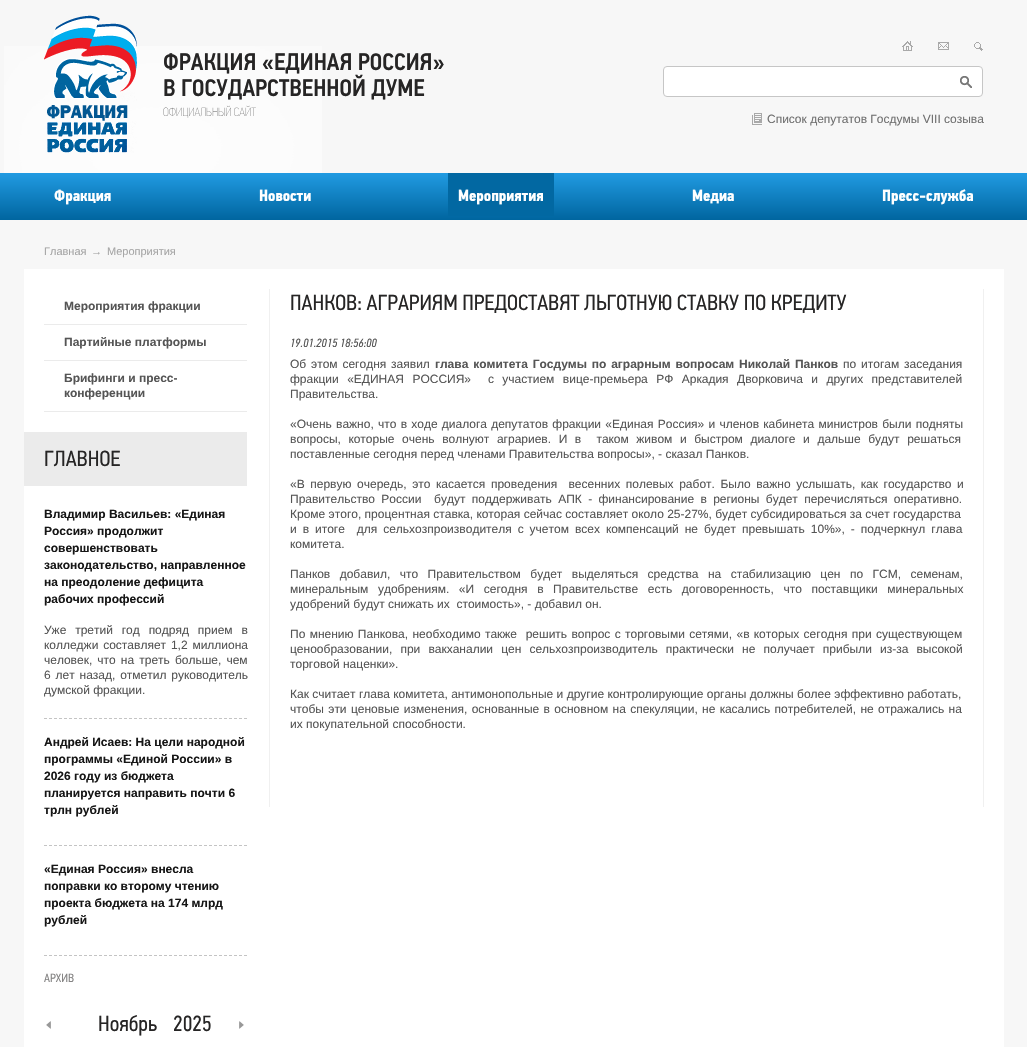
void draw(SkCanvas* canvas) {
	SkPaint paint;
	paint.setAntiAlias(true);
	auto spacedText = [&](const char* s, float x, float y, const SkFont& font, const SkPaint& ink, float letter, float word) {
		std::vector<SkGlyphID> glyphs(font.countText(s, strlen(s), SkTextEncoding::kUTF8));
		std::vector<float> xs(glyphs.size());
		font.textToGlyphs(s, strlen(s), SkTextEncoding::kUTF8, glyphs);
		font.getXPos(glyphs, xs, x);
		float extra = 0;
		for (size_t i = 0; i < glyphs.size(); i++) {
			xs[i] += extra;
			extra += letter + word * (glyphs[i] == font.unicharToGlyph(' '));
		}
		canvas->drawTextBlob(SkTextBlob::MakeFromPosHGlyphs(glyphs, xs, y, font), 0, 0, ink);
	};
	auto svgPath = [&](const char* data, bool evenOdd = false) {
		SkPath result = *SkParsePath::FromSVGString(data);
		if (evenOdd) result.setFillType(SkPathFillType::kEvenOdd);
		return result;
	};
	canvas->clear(0xfff7f7f7);
	canvas->drawImageRect(SkImages::DeferredFromEncodedData(SkData::MakeFromFileName("img1.png")), SkRect::MakeXYWH(4, 46, 318, 127), SkSamplingOptions());
	canvas->drawImageRect(SkImages::DeferredFromEncodedData(SkData::MakeFromFileName("img2.png")), SkRect::MakeXYWH(44, 15, 93, 138), SkSamplingOptions());
	SkFont f1(fontMgr->matchFamilyStyle("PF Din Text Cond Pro", SkFontStyle(500, SkFontStyle::kNormal_Width, SkFontStyle::kUpright_Slant)), 24);
	f1.setSubpixel(true);
	paint.setColor(0xff262525);
	canvas->drawString("ФРАКЦИЯ «ЕДИНАЯ РОССИЯ»", 163, 70, f1, paint);
	canvas->drawString("В ГОСУДАРСТВЕННОЙ ДУМЕ", 163, 96, f1, paint);
	SkFont f2(fontMgr->matchFamilyStyle("PF Din Text Cond Pro", SkFontStyle(100, SkFontStyle::kNormal_Width, SkFontStyle::kUpright_Slant)), 12);
	f2.setSubpixel(true);
	paint.setColor(0xff707070);
	canvas->drawString("ОФИЦИАЛЬНЫЙ САЙТ", 163, 116, f2, paint);
	canvas->drawImageRect(SkImages::DeferredFromEncodedData(SkData::MakeFromFileName("img3.png")), SkRect::MakeXYWH(902, 41, 11, 10), SkSamplingOptions());
	canvas->drawImageRect(SkImages::DeferredFromEncodedData(SkData::MakeFromFileName("img4.png")), SkRect::MakeXYWH(938, 42, 11, 8), SkSamplingOptions());
	canvas->drawImageRect(SkImages::DeferredFromEncodedData(SkData::MakeFromFileName("img5.png")), SkRect::MakeXYWH(974, 42, 9, 9), SkSamplingOptions());
	paint.setColor(0xffffffff);
	canvas->drawRoundRect(SkRect::MakeXYWH(663.5, 66.5, 319, 30), 3.5, 3.5, paint);
	paint.setStroke(true);
	paint.setStrokeWidth(1);
	paint.setColor(0xffc6c6c6);
	canvas->drawRoundRect(SkRect::MakeXYWH(663.5, 66.5, 319, 30), 3.5, 3.5, paint);
	canvas->drawImageRect(SkImages::DeferredFromEncodedData(SkData::MakeFromFileName("img6.png")), SkRect::MakeXYWH(960, 76, 12, 12), SkSamplingOptions());
	canvas->drawImageRect(SkImages::DeferredFromEncodedData(SkData::MakeFromFileName("img7.png")), SkRect::MakeXYWH(752, 113, 10, 12), SkSamplingOptions());
	SkFont f3(fontMgr->matchFamilyStyle("Liberation Sans", SkFontStyle::Normal()), 12);
	f3.setSubpixel(true);
	paint.setStroke(false);
	paint.setColor(0xff707070);
	canvas->drawString("Список депутатов Госдумы VIII созыва", 767, 123, f3, paint);
	{
		const SkColor colors[] = {0xff00659f, 0xff219be2};
		const float stops[] = {0, 1};
		const SkPoint ends[] = {{514, 220}, {514, 173}};
		paint.setShader(SkGradientShader::MakeLinear(ends, colors, stops, 2, SkTileMode::kClamp));
		paint.setAlpha(255);
	}
	canvas->drawRect(SkRect::MakeXYWH(0, 173, 1027, 47), paint);
	SkFont f4(fontMgr->matchFamilyStyle("PF Din Text Cond Pro", SkFontStyle::Bold()), 16);
	f4.setSubpixel(true);
	paint.setShader(nullptr);
	paint.setColor(0xffffffff);
	canvas->drawString("Фракция", 54, 201, f4, paint);
	canvas->drawString("Новости", 259, 201, f4, paint);
	paint.setColor(0xff0268a2);
	canvas->drawRect(SkRect::MakeXYWH(448, 173, 106, 43), paint);
	paint.setColor(0xffffffff);
	canvas->drawString("Мероприятия", 458, 201, f4, paint);
	canvas->drawString("Медиа", 692, 201, f4, paint);
	canvas->drawString("Пресс-служба", 882, 201, f4, paint);
	SkFont f5(fontMgr->matchFamilyStyle("Liberation Sans", SkFontStyle::Normal()), 11);
	f5.setSubpixel(true);
	paint.setColor(0xffa5a5a5);
	canvas->drawString("Главная", 44, 255, f5, paint);
	canvas->drawString("→", 91, 255, f5, paint);
	canvas->drawString("Мероприятия", 107, 255, f5, paint);
	paint.setColor(0xffffffff);
	canvas->drawRect(SkRect::MakeXYWH(24, 269, 980, 778), paint);
	paint.setColor(0xffebebeb);
	canvas->drawRect(SkRect::MakeXYWH(44, 324, 203, 1), paint);
	SkFont f6(fontMgr->matchFamilyStyle("Liberation Sans", SkFontStyle::Bold()), 12);
	f6.setSubpixel(true);
	paint.setColor(0xff555555);
	canvas->drawString("Мероприятия фракции", 64, 310, f6, paint);
	paint.setColor(0xffebebeb);
	canvas->drawRect(SkRect::MakeXYWH(44, 360, 203, 1), paint);
	paint.setColor(0xff555555);
	canvas->drawString("Партийные платформы", 64, 346, f6, paint);
	paint.setColor(0xffebebeb);
	canvas->drawRect(SkRect::MakeXYWH(44, 411, 203, 1), paint);
	paint.setColor(0xff555555);
	canvas->drawString("Брифинги и пресс-", 64, 382, f6, paint);
	canvas->drawString("конференции", 64, 397, f6, paint);
	paint.setColor(0xffebebeb);
	canvas->drawRect(SkRect::MakeXYWH(24, 432, 223, 54), paint);
	SkFont f7(fontMgr->matchFamilyStyle("PF Din Text Cond Pro", SkFontStyle::Normal()), 22);
	f7.setSubpixel(true);
	paint.setColor(0xff262525);
	canvas->drawString("ГЛАВНОЕ", 44, 466, f7, paint);
	paint.setStroke(true);
	paint.setColor(0xffc4c4c4);
	paint.setPathEffect(SkDashPathEffect::Make({{3, 2}}, 0));
	canvas->drawPath(svgPath("M44 718.5H247"), paint);
	paint.setPathEffect(nullptr);
	paint.setStroke(false);
	paint.setColor(0xff161616);
	canvas->drawString("Владимир Васильев: «Единая", 44, 518, f6, paint);
	canvas->drawString("Россия» продолжит", 44, 535, f6, paint);
	canvas->drawString("совершенствовать", 44, 552, f6, paint);
	canvas->drawString("законодательство, направленное", 44, 569, f6, paint);
	canvas->drawString("на преодоление дефицита", 44, 586, f6, paint);
	canvas->drawString("рабочих профессий", 44, 603, f6, paint);
	paint.setColor(0xff555555);
	spacedText("Уже третий год подряд прием в", 44, 634, f3, paint, 0, 5.5);
	spacedText("колледжи составляет 1,2 миллиона", 44, 649, f3, paint, 0, 1.5);
	spacedText("человек, что на треть больше, чем", 44, 664, f3, paint, 0, 1.75);
	spacedText("6 лет назад, отметил руководитель", 44, 679, f3, paint, 0, 1.5);
	canvas->drawString("думской фракции.", 44, 694, f3, paint);
	paint.setStroke(true);
	paint.setColor(0xffc4c4c4);
	paint.setPathEffect(SkDashPathEffect::Make({{3, 2}}, 0));
	canvas->drawPath(svgPath("M44 845.5H247"), paint);
	paint.setPathEffect(nullptr);
	paint.setStroke(false);
	paint.setColor(0xff161616);
	canvas->drawString("Андрей Исаев: На цели народной", 44, 746, f6, paint);
	canvas->drawString("программы «Единой России» в", 44, 763, f6, paint);
	canvas->drawString("2026 году из бюджета", 44, 780, f6, paint);
	canvas->drawString("планируется направить почти 6", 44, 797, f6, paint);
	canvas->drawString("трлн рублей", 44, 814, f6, paint);
	paint.setStroke(true);
	paint.setColor(0xffc4c4c4);
	paint.setPathEffect(SkDashPathEffect::Make({{3, 2}}, 0));
	canvas->drawPath(svgPath("M44 955.5H247"), paint);
	paint.setPathEffect(nullptr);
	paint.setStroke(false);
	paint.setColor(0xff161616);
	canvas->drawString("«Единая Россия» внесла", 44, 873, f6, paint);
	canvas->drawString("поправки ко второму чтению", 44, 890, f6, paint);
	canvas->drawString("проекта бюджета на 174 млрд", 44, 907, f6, paint);
	canvas->drawString("рублей", 44, 924, f6, paint);
	SkFont f8(fontMgr->matchFamilyStyle("PF Din Text Cond Pro", SkFontStyle::Normal()), 12);
	f8.setSubpixel(true);
	paint.setColor(0xff858484);
	canvas->drawString("АРХИВ", 44, 982, f8, paint);
	canvas->drawImageRect(SkImages::DeferredFromEncodedData(SkData::MakeFromFileName("img8.png")), SkRect::MakeXYWH(46, 1021, 5, 8), SkSamplingOptions());
	paint.setColor(0xff262525);
	canvas->drawString("Ноябрь", 98, 1031, f7, paint);
	canvas->drawString("2025", 173, 1031, f7, paint);
	canvas->drawImageRect(SkImages::DeferredFromEncodedData(SkData::MakeFromFileName("img9.png")), SkRect::MakeXYWH(239, 1021, 5, 8), SkSamplingOptions());
	paint.setColor(0xfff0f0f0);
	canvas->drawRect(SkRect::MakeXYWH(983, 289, 1, 518), paint);
	canvas->drawRect(SkRect::MakeXYWH(269, 289, 1, 518), paint);
	paint.setColor(0xff262525);
	canvas->drawString("ПАНКОВ: АГРАРИЯМ ПРЕДОСТАВЯТ ЛЬГОТНУЮ СТАВКУ ПО КРЕДИТУ", 290, 310, f7, paint);
	SkFont f9(fontMgr->matchFamilyStyle("PF Din Text Cond Pro", SkFontStyle::Italic()), 12);
	f9.setSubpixel(true);
	paint.setColor(0xff555555);
	canvas->drawString("19.01.2015 18:56:00", 290, 347, f9, paint);
	spacedText("Об этом сегодня заявил", 290, 368, f3, paint, 0, 1.5);
	spacedText("глава комитета Госдумы по аграрным вопросам Николай Панков", 435, 368, f6, paint, 0, 1.5);
	spacedText("по итогам заседания", 843, 368, f3, paint, 0, 1.5);
	spacedText("фракции «ЕДИНАЯ РОССИЯ»  с участием вице-премьера РФ Аркадия Дворковича и других представителей", 290, 383, f3, paint, 0, 5.1);
	canvas->drawString("Правительства.", 290, 398, f3, paint);
	spacedText("«Очень важно, что в ходе диалога депутатов фракции «Единая Россия» и членов кабинета министров были подняты", 290, 428, f3, paint, 0, 0.9);
	spacedText("вопросы, которые очень волнуют аграриев. И в  таком живом и быстром диалоге и дальше будут решаться", 290, 443, f3, paint, 0, 4.25);
	canvas->drawString("поставленные сегодня перед членами Правительства вопросы», - сказал Панков.", 290, 458, f3, paint);
	spacedText("«В первую очередь, это касается проведения  весенних полевых работ. Было важно услышать, как государство и", 290, 488, f3, paint, 0, 2.25);
	spacedText("Правительство России  будут поддерживать АПК - финансирование в регионы будет перечисляться оперативно.", 290, 503, f3, paint, 0, 3);
	canvas->drawString("Кроме этого, процентная ставка, которая сейчас составляет около 25-27%, будет субсидироваться за счет государства", 290, 518, f3, paint);
	spacedText("и в итоге  для сельхозпроизводителя с учетом всех компенсаций не будет превышать 10%», - подчеркнул глава", 290, 533, f3, paint, 0, 2.6);
	canvas->drawString("комитета.", 290, 548, f3, paint);
	spacedText("Панков добавил, что Правительством будет выделяться средства на стабилизацию цен по ГСМ, семенам,", 290, 578, f3, paint, 0, 6.1);
	spacedText("минеральным удобрениям. «И сегодня в Правительстве есть договоренность, что поставщики минеральных", 290, 593, f3, paint, 0, 6.25);
	canvas->drawString("удобрений будут снижать их  стоимость», - добавил он.", 290, 608, f3, paint);
	spacedText("По мнению Панкова, необходимо также  решить вопрос с торговыми сетями, «в которых сегодня при существующем", 290, 638, f3, paint, 0, 1);
	spacedText("ценообразовании, при вакханалии цен сельхозпроизводитель практически не получает прибыли из-за высокой", 290, 653, f3, paint, 0, 4.75);
	canvas->drawString("торговой наценки».", 290, 668, f3, paint);
	canvas->drawString("Как считает глава комитета, антимонопольные и другие контролирующие органы должны более эффективно работать,", 290, 698, f3, paint);
	spacedText("чтобы эти ценовые изменения, основанные в основном на спекуляции, не касались потребителей, не отражались на", 290, 713, f3, paint, 0, 1);
	canvas->drawString("их покупательной способности.", 290, 728, f3, paint);
}
